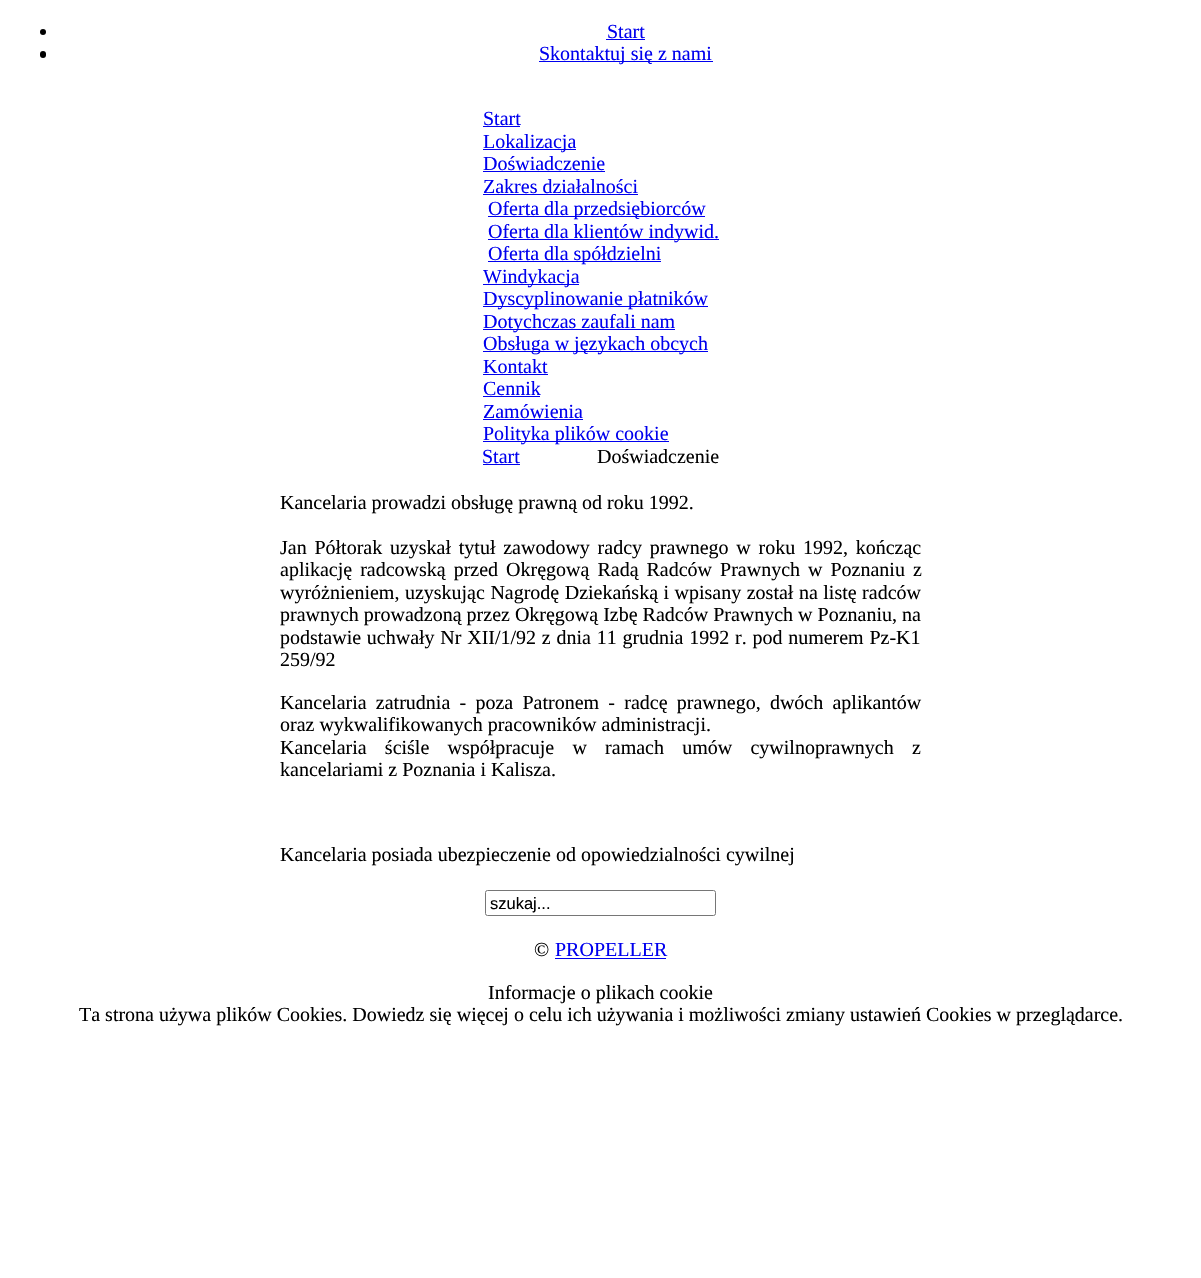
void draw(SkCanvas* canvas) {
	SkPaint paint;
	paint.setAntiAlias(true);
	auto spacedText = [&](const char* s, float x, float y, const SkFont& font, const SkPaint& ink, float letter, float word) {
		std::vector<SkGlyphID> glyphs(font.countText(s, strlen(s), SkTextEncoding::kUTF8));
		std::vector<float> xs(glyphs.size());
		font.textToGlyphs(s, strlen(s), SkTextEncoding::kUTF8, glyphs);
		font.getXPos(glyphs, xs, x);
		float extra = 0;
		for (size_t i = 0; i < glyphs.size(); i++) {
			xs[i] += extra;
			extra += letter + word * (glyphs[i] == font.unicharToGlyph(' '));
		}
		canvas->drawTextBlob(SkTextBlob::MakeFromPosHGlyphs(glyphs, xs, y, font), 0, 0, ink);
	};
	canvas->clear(0xffffffff);
	paint.setColor(0xff000000);
	canvas->drawCircle(43, 32, 3, paint);
	SkFont f1(fontMgr->matchFamilyStyle("Liberation Serif", SkFontStyle::Normal()), 20);
	f1.setSubpixel(true);
	paint.setColor(0xff0000ee);
	canvas->drawString("Start", 607, 38, f1, paint);
	canvas->drawRect(SkRect::MakeXYWH(606, 39, 39, 1), paint);
	paint.setColor(0xff000000);
	canvas->drawRoundRect(SkRect::MakeXYWH(40, 51, 6, 7), 3, 3, paint);
	paint.setColor(0xff0000ee);
	canvas->drawRect(SkRect::MakeXYWH(539, 61, 174, 1), paint);
	canvas->drawString("Skontaktuj się z nami", 539, 60, f1, paint);
	canvas->drawString("Start", 483, 125, f1, paint);
	canvas->drawRect(SkRect::MakeXYWH(483, 126, 37, 1), paint);
	canvas->drawRect(SkRect::MakeXYWH(483, 149, 93, 1), paint);
	canvas->drawString("Lokalizacja", 483, 148, f1, paint);
	canvas->drawString("Doświadczenie", 483, 170, f1, paint);
	canvas->drawRect(SkRect::MakeXYWH(483, 171, 122, 1), paint);
	canvas->drawString("Zakres działalności", 483, 193, f1, paint);
	canvas->drawRect(SkRect::MakeXYWH(483, 194, 155, 1), paint);
	canvas->drawRect(SkRect::MakeXYWH(488, 216, 217, 1), paint);
	canvas->drawString("Oferta dla przedsiębiorców", 488, 215, f1, paint);
	canvas->drawRect(SkRect::MakeXYWH(488, 239, 231, 1), paint);
	canvas->drawString("Oferta dla klientów indywid.", 488, 238, f1, paint);
	canvas->drawRect(SkRect::MakeXYWH(488, 261, 173, 1), paint);
	canvas->drawString("Oferta dla spółdzielni", 488, 260, f1, paint);
	canvas->drawRect(SkRect::MakeXYWH(483, 284, 96, 1), paint);
	canvas->drawString("Windykacja", 483, 283, f1, paint);
	canvas->drawRect(SkRect::MakeXYWH(483, 306, 225, 1), paint);
	canvas->drawString("Dyscyplinowanie płatników", 483, 305, f1, paint);
	canvas->drawRect(SkRect::MakeXYWH(483, 329, 192, 1), paint);
	canvas->drawString("Dotychczas zaufali nam", 483, 328, f1, paint);
	canvas->drawRect(SkRect::MakeXYWH(483, 351, 225, 1), paint);
	canvas->drawString("Obsługa w językach obcych", 483, 350, f1, paint);
	canvas->drawString("Kontakt", 483, 373, f1, paint);
	canvas->drawRect(SkRect::MakeXYWH(483, 374, 65, 1), paint);
	canvas->drawString("Cennik", 483, 395, f1, paint);
	canvas->drawRect(SkRect::MakeXYWH(483, 396, 57, 1), paint);
	canvas->drawString("Zamówienia", 483, 418, f1, paint);
	canvas->drawRect(SkRect::MakeXYWH(483, 419, 100, 1), paint);
	canvas->drawRect(SkRect::MakeXYWH(483, 441, 186, 1), paint);
	canvas->drawString("Polityka plików cookie", 483, 440, f1, paint);
	canvas->drawString("Start", 482, 463, f1, paint);
	canvas->drawRect(SkRect::MakeXYWH(483, 464, 37, 1), paint);
	paint.setColor(0xff000000);
	canvas->drawString("Doświadczenie", 597, 463, f1, paint);
	canvas->drawString("Kancelaria prowadzi obsługę prawną od roku 1992.", 280, 509, f1, paint);
	spacedText("Jan Półtorak uzyskał tytuł zawodowy radcy prawnego w roku 1992, kończąc", 280, 554, f1, paint, 0, 2.75);
	spacedText("aplikację radcowską przed Okręgową Radą Radców Prawnych w Poznaniu z", 280, 576, f1, paint, 0, 3);
	spacedText("wyróżnieniem, uzyskując Nagrodę Dziekańską i wpisany został na listę radców", 280, 599, f1, paint, 0, 0.5);
	canvas->drawString("prawnych prowadzoną przez Okręgową Izbę Radców Prawnych w Poznaniu, na", 280, 621, f1, paint);
	spacedText("podstawie uchwały Nr XII/1/92 z dnia 11 grudnia 1992 r. pod numerem Pz-K1", 280, 644, f1, paint, 0, 0.75);
	canvas->drawString("259/92", 280, 666, f1, paint);
	spacedText("Kancelaria zatrudnia - poza Patronem - radcę prawnego, dwóch aplikantów", 280, 709, f1, paint, 0, 4.25);
	canvas->drawString("oraz wykwalifikowanych pracowników administracji.", 280, 731, f1, paint);
	spacedText("Kancelaria ściśle współpracuje w ramach umów cywilnoprawnych z", 280, 754, f1, paint, 0, 13.25);
	canvas->drawString("kancelariami z Poznania i Kalisza.", 280, 776, f1, paint);
	canvas->drawString("Kancelaria posiada ubezpieczenie od opowiedzialności cywilnej", 280, 861, f1, paint);
	paint.setStroke(true);
	paint.setStrokeWidth(1);
	paint.setColor(0xff767676);
	canvas->drawRoundRect(SkRect::MakeXYWH(485.5, 890.5, 230, 25), 2, 2, paint);
	SkFont f2(fontMgr->matchFamilyStyle("Liberation Sans", SkFontStyle::Normal()), 16.5);
	f2.setSubpixel(true);
	paint.setStroke(false);
	paint.setColor(0xff000000);
	canvas->drawString("szukaj...", 490, 909, f2, paint);
	canvas->drawString("©", 534, 956, f1, paint);
	paint.setColor(0xff0000ee);
	canvas->drawString("PROPELLER", 555, 956, f1, paint);
	canvas->drawRect(SkRect::MakeXYWH(555, 958, 111, 1), paint);
	paint.setColor(0xff000000);
	canvas->drawString("Informacje o plikach cookie", 488, 999, f1, paint);
	canvas->drawString("Ta strona używa plików Cookies. Dowiedz się więcej o celu ich używania i możliwości zmiany ustawień Cookies w przeglądarce.", 79, 1021, f1, paint);
}
